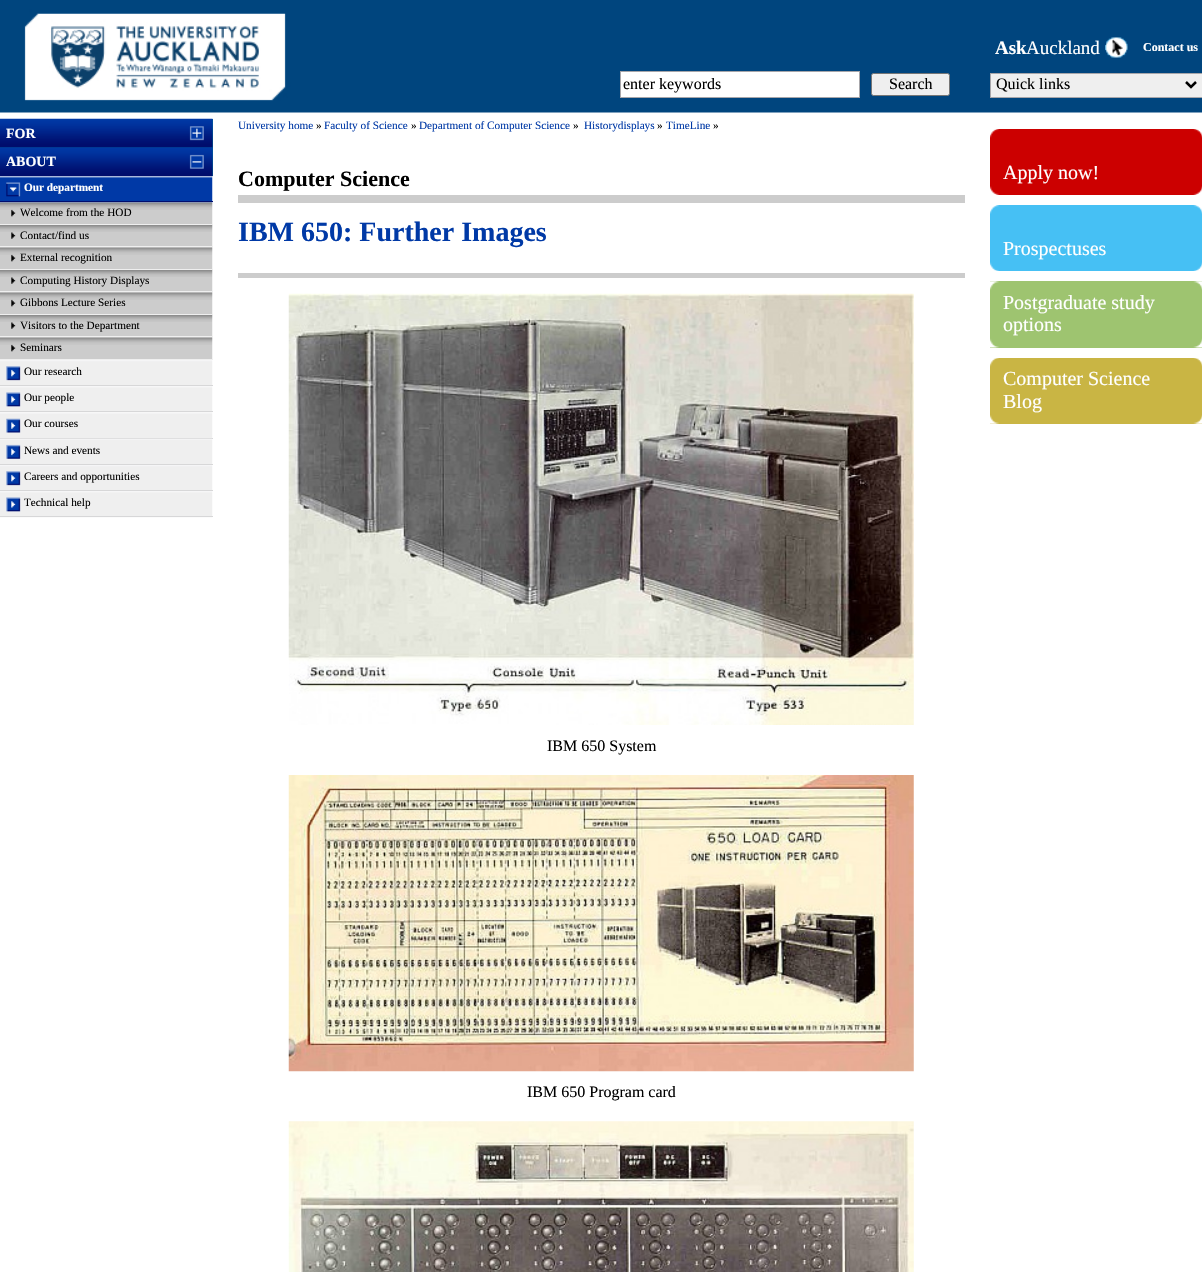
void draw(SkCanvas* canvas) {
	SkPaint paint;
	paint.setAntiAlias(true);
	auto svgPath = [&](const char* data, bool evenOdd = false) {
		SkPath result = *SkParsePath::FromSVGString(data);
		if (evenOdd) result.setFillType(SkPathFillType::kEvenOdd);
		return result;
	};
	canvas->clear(0xffffffff);
	canvas->drawImageRect(SkImages::DeferredFromEncodedData(SkData::MakeFromFileName("img1.png")), SkRect::MakeXYWH(0, 0, 1202, 113), SkSamplingOptions());
	SkFont f1(fontMgr->matchFamilyStyle("Liberation Serif", SkFontStyle::Bold()), 19);
	f1.setSubpixel(true);
	paint.setColor(0xffffffff);
	canvas->drawString("Ask", 995, 54, f1, paint);
	SkFont f2(fontMgr->matchFamilyStyle("Liberation Serif", SkFontStyle::Normal()), 19);
	f2.setSubpixel(true);
	canvas->drawString("Auckland", 1026, 54, f2, paint);
	canvas->drawImageRect(SkImages::DeferredFromEncodedData(SkData::MakeFromFileName("img2.png")), SkRect::MakeXYWH(1105, 37, 23, 21), SkSamplingOptions());
	SkFont f3(fontMgr->matchFamilyStyle("Liberation Serif", SkFontStyle::Bold()), 12);
	f3.setSubpixel(true);
	canvas->drawString("Contact us", 1143, 51, f3, paint);
	canvas->drawRect(SkRect::MakeXYWH(620.5, 71.5, 239, 26), paint);
	paint.setStroke(true);
	paint.setStrokeWidth(1);
	paint.setColor(0xffa7a6aa);
	canvas->drawRect(SkRect::MakeXYWH(620.5, 71.5, 239, 26), paint);
	SkFont f4(fontMgr->matchFamilyStyle("Liberation Serif", SkFontStyle::Normal()), 16);
	f4.setSubpixel(true);
	paint.setStroke(false);
	paint.setColor(0xff000000);
	canvas->drawString("enter keywords", 623, 89, f4, paint);
	paint.setColor(0xffefefef);
	canvas->drawRoundRect(SkRect::MakeXYWH(871.5, 73.5, 78, 22), 2, 2, paint);
	paint.setStroke(true);
	paint.setColor(0xff767676);
	canvas->drawRoundRect(SkRect::MakeXYWH(871.5, 73.5, 78, 22), 2, 2, paint);
	paint.setStroke(false);
	paint.setColor(0xff000000);
	canvas->drawString("Search", 889, 89, f4, paint);
	paint.setColor(0xffefefef);
	canvas->drawRect(SkRect::MakeXYWH(990.5, 73.5, 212, 24), paint);
	paint.setStroke(true);
	paint.setColor(0xffa7a6aa);
	canvas->drawRect(SkRect::MakeXYWH(990.5, 73.5, 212, 24), paint);
	paint.setStrokeWidth(2.5);
	paint.setColor(0xff000000);
	canvas->drawPath(svgPath("M1186 82L1191 87L1196 82"), paint);
	paint.setStroke(false);
	canvas->drawString("Quick links", 996, 89, f4, paint);
	paint.setColor(0xff006699);
	canvas->drawRect(SkRect::MakeXYWH(0, 119, 213, 29), paint);
	canvas->drawImageRect(SkImages::DeferredFromEncodedData(SkData::MakeFromFileName("img3.png")), SkRect::MakeXYWH(0, 118, 213, 30), SkSamplingOptions());
	SkFont f5(fontMgr->matchFamilyStyle("Liberation Serif", SkFontStyle::Bold()), 14);
	f5.setSubpixel(true);
	paint.setColor(0xffffffff);
	canvas->drawString("FOR", 6, 138, f5, paint);
	paint.setColor(0xff006699);
	canvas->drawRect(SkRect::MakeXYWH(212, 148, 1, 28), paint);
	canvas->drawImageRect(SkImages::DeferredFromEncodedData(SkData::MakeFromFileName("img4.png")), SkRect::MakeXYWH(0, 147, 213, 30), SkSamplingOptions());
	paint.setColor(0xffffffff);
	canvas->drawString("ABOUT", 6, 166, f5, paint);
	canvas->drawImageRect(SkImages::DeferredFromEncodedData(SkData::MakeFromFileName("img5.png")), SkRect::MakeXYWH(0, 176, 213, 27), SkSamplingOptions());
	paint.setColor(0xff000d6c);
	canvas->drawRect(SkRect::MakeXYWH(0, 201, 213, 1), paint);
	SkFont f6(fontMgr->matchFamilyStyle("Liberation Serif", SkFontStyle::Bold()), 11.25);
	f6.setSubpixel(true);
	paint.setColor(0xffffffff);
	canvas->drawString("Our department", 24, 191, f6, paint);
	canvas->drawImageRect(SkImages::DeferredFromEncodedData(SkData::MakeFromFileName("img7.png")), SkRect::MakeXYWH(0, 202, 213, 22), SkSamplingOptions());
	SkFont f7(fontMgr->matchFamilyStyle("Liberation Serif", SkFontStyle::Normal()), 11.25);
	f7.setSubpixel(true);
	paint.setColor(0xff000000);
	canvas->drawString("Welcome from the HOD", 20, 216, f7, paint);
	canvas->drawImageRect(SkImages::DeferredFromEncodedData(SkData::MakeFromFileName("img6.png")), SkRect::MakeXYWH(0, 202, 213, 8), SkSamplingOptions());
	paint.setColor(0xffefefef);
	canvas->drawRect(SkRect::MakeXYWH(0, 224, 213, 1), paint);
	canvas->drawImageRect(SkImages::DeferredFromEncodedData(SkData::MakeFromFileName("img9.png")), SkRect::MakeXYWH(0, 225, 213, 23), SkSamplingOptions());
	paint.setColor(0xff000000);
	canvas->drawString("Contact/find us", 20, 239, f7, paint);
	canvas->drawImageRect(SkImages::DeferredFromEncodedData(SkData::MakeFromFileName("img8.png")), SkRect::MakeXYWH(0, 225, 213, 7), SkSamplingOptions());
	paint.setColor(0xffefefef);
	canvas->drawRect(SkRect::MakeXYWH(0, 246, 213, 1), paint);
	canvas->drawImageRect(SkImages::DeferredFromEncodedData(SkData::MakeFromFileName("img11.png")), SkRect::MakeXYWH(0, 247, 213, 22), SkSamplingOptions());
	paint.setColor(0xff000000);
	canvas->drawString("External recognition", 20, 261, f7, paint);
	canvas->drawImageRect(SkImages::DeferredFromEncodedData(SkData::MakeFromFileName("img10.png")), SkRect::MakeXYWH(0, 247, 213, 8), SkSamplingOptions());
	paint.setColor(0xffefefef);
	canvas->drawRect(SkRect::MakeXYWH(0, 269, 213, 1), paint);
	canvas->drawImageRect(SkImages::DeferredFromEncodedData(SkData::MakeFromFileName("img9.png")), SkRect::MakeXYWH(0, 270, 213, 23), SkSamplingOptions());
	paint.setColor(0xff000000);
	canvas->drawString("Computing History Displays", 20, 284, f7, paint);
	canvas->drawImageRect(SkImages::DeferredFromEncodedData(SkData::MakeFromFileName("img12.png")), SkRect::MakeXYWH(0, 270, 213, 7), SkSamplingOptions());
	paint.setColor(0xffefefef);
	canvas->drawRect(SkRect::MakeXYWH(0, 291, 213, 1), paint);
	canvas->drawImageRect(SkImages::DeferredFromEncodedData(SkData::MakeFromFileName("img14.png")), SkRect::MakeXYWH(0, 292, 213, 22), SkSamplingOptions());
	paint.setColor(0xff000000);
	canvas->drawString("Gibbons Lecture Series", 20, 306, f7, paint);
	canvas->drawImageRect(SkImages::DeferredFromEncodedData(SkData::MakeFromFileName("img13.png")), SkRect::MakeXYWH(0, 292, 213, 8), SkSamplingOptions());
	paint.setColor(0xffefefef);
	canvas->drawRect(SkRect::MakeXYWH(0, 314, 213, 1), paint);
	canvas->drawImageRect(SkImages::DeferredFromEncodedData(SkData::MakeFromFileName("img9.png")), SkRect::MakeXYWH(0, 315, 213, 23), SkSamplingOptions());
	paint.setColor(0xff000000);
	canvas->drawString("Visitors to the Department", 20, 329, f7, paint);
	canvas->drawImageRect(SkImages::DeferredFromEncodedData(SkData::MakeFromFileName("img15.png")), SkRect::MakeXYWH(0, 315, 213, 7), SkSamplingOptions());
	paint.setColor(0xffefefef);
	canvas->drawRect(SkRect::MakeXYWH(0, 336, 213, 1), paint);
	canvas->drawImageRect(SkImages::DeferredFromEncodedData(SkData::MakeFromFileName("img11.png")), SkRect::MakeXYWH(0, 337, 213, 22), SkSamplingOptions());
	paint.setColor(0xff000000);
	canvas->drawString("Seminars", 20, 351, f7, paint);
	canvas->drawImageRect(SkImages::DeferredFromEncodedData(SkData::MakeFromFileName("img16.png")), SkRect::MakeXYWH(0, 337, 213, 8), SkSamplingOptions());
	paint.setColor(0xffefefef);
	canvas->drawRect(SkRect::MakeXYWH(0, 359, 213, 1), paint);
	canvas->drawImageRect(SkImages::DeferredFromEncodedData(SkData::MakeFromFileName("img17.png")), SkRect::MakeXYWH(0, 360, 213, 27), SkSamplingOptions());
	paint.setColor(0xffd7d7d8);
	canvas->drawRect(SkRect::MakeXYWH(0, 385, 213, 1), paint);
	paint.setColor(0xff000000);
	canvas->drawString("Our research", 24, 375, f7, paint);
	canvas->drawImageRect(SkImages::DeferredFromEncodedData(SkData::MakeFromFileName("img18.png")), SkRect::MakeXYWH(0, 386, 213, 27), SkSamplingOptions());
	paint.setColor(0xffd7d7d8);
	canvas->drawRect(SkRect::MakeXYWH(0, 411, 213, 1), paint);
	paint.setColor(0xff000000);
	canvas->drawString("Our people", 24, 401, f7, paint);
	canvas->drawImageRect(SkImages::DeferredFromEncodedData(SkData::MakeFromFileName("img19.png")), SkRect::MakeXYWH(0, 413, 213, 25), SkSamplingOptions());
	paint.setColor(0xffd7d7d8);
	canvas->drawRect(SkRect::MakeXYWH(0, 438, 213, 1), paint);
	paint.setColor(0xff000000);
	canvas->drawString("Our courses", 24, 427, f7, paint);
	canvas->drawImageRect(SkImages::DeferredFromEncodedData(SkData::MakeFromFileName("img20.png")), SkRect::MakeXYWH(0, 438, 213, 26), SkSamplingOptions());
	paint.setColor(0xffd7d7d8);
	canvas->drawRect(SkRect::MakeXYWH(0, 464, 213, 1), paint);
	paint.setColor(0xff000000);
	canvas->drawString("News and events", 24, 454, f7, paint);
	canvas->drawImageRect(SkImages::DeferredFromEncodedData(SkData::MakeFromFileName("img17.png")), SkRect::MakeXYWH(0, 465, 213, 27), SkSamplingOptions());
	paint.setColor(0xffd7d7d8);
	canvas->drawRect(SkRect::MakeXYWH(0, 490, 213, 1), paint);
	paint.setColor(0xff000000);
	canvas->drawString("Careers and opportunities", 24, 480, f7, paint);
	canvas->drawImageRect(SkImages::DeferredFromEncodedData(SkData::MakeFromFileName("img21.png")), SkRect::MakeXYWH(0, 491, 213, 27), SkSamplingOptions());
	paint.setColor(0xffd7d7d8);
	canvas->drawRect(SkRect::MakeXYWH(0, 516, 213, 1), paint);
	paint.setColor(0xff000000);
	canvas->drawString("Technical help", 24, 506, f7, paint);
	paint.setColor(0xff0039a6);
	canvas->drawString("University home", 238, 129, f7, paint);
	paint.setColor(0xff000000);
	canvas->drawString("»", 316, 129, f7, paint);
	paint.setColor(0xff0039a6);
	canvas->drawString("Faculty of Science", 324, 129, f7, paint);
	paint.setColor(0xff000000);
	canvas->drawString("»", 411, 129, f7, paint);
	paint.setColor(0xff0039a6);
	canvas->drawString("Department of Computer Science", 419, 129, f7, paint);
	paint.setColor(0xff000000);
	canvas->drawString("»", 573, 129, f7, paint);
	paint.setColor(0xff0039a6);
	canvas->drawString("Historydisplays", 584, 129, f7, paint);
	paint.setColor(0xff000000);
	canvas->drawString("»", 657, 129, f7, paint);
	paint.setColor(0xff0039a6);
	canvas->drawString("TimeLine", 666, 129, f7, paint);
	paint.setColor(0xff000000);
	canvas->drawString("»", 713, 129, f7, paint);
	SkFont f8(fontMgr->matchFamilyStyle("Liberation Serif", SkFontStyle::Bold()), 22);
	f8.setSubpixel(true);
	canvas->drawString("Computer Science", 238, 186, f8, paint);
	paint.setColor(0xffcccccc);
	canvas->drawRect(SkRect::MakeXYWH(238, 195, 727, 8), paint);
	SkFont f9(fontMgr->matchFamilyStyle("Liberation Serif", SkFontStyle::Bold()), 28);
	f9.setSubpixel(true);
	paint.setColor(0xff0039a6);
	canvas->drawString("IBM 650: Further Images", 238, 241, f9, paint);
	paint.setColor(0xffcccccc);
	canvas->drawRect(SkRect::MakeXYWH(238, 273, 727, 5), paint);
	canvas->drawImageRect(SkImages::DeferredFromEncodedData(SkData::MakeFromFileName("img22.png")), SkRect::MakeXYWH(288, 293, 626, 432), SkSamplingOptions());
	paint.setColor(0xff000000);
	canvas->drawString("IBM 650 System", 547, 751, f4, paint);
	canvas->drawImageRect(SkImages::DeferredFromEncodedData(SkData::MakeFromFileName("img23.png")), SkRect::MakeXYWH(288, 775, 626, 297), SkSamplingOptions());
	canvas->drawString("IBM 650 Program card", 527, 1097, f4, paint);
	canvas->drawImageRect(SkImages::DeferredFromEncodedData(SkData::MakeFromFileName("img24.png")), SkRect::MakeXYWH(288, 1121, 626, 151), SkSamplingOptions());
	paint.setColor(0xffcc0000);
	canvas->drawRect(SkRect::MakeXYWH(990, 129, 212, 66), paint);
	canvas->drawImageRect(SkImages::DeferredFromEncodedData(SkData::MakeFromFileName("img25.png")), SkRect::MakeXYWH(990, 129, 212, 66), SkSamplingOptions());
	SkFont f10(fontMgr->matchFamilyStyle("Liberation Serif", SkFontStyle::Normal()), 20);
	f10.setSubpixel(true);
	paint.setColor(0xffffffff);
	canvas->drawString("Apply now!", 1003, 179, f10, paint);
	paint.setColor(0xff46c0f4);
	canvas->drawRect(SkRect::MakeXYWH(990, 205, 212, 66), paint);
	canvas->drawImageRect(SkImages::DeferredFromEncodedData(SkData::MakeFromFileName("img26.png")), SkRect::MakeXYWH(990, 205, 212, 66), SkSamplingOptions());
	paint.setColor(0xffffffff);
	canvas->drawString("Prospectuses", 1003, 255, f10, paint);
	paint.setColor(0xff9ec470);
	canvas->drawRect(SkRect::MakeXYWH(990, 281, 212, 67), paint);
	canvas->drawImageRect(SkImages::DeferredFromEncodedData(SkData::MakeFromFileName("img27.png")), SkRect::MakeXYWH(990, 281, 212, 67), SkSamplingOptions());
	paint.setColor(0xffffffff);
	canvas->drawString("Postgraduate study", 1003, 309, f10, paint);
	canvas->drawString("options", 1003, 331, f10, paint);
	paint.setColor(0xffc9b544);
	canvas->drawRect(SkRect::MakeXYWH(990, 358, 212, 66), paint);
	canvas->drawImageRect(SkImages::DeferredFromEncodedData(SkData::MakeFromFileName("img28.png")), SkRect::MakeXYWH(990, 358, 212, 66), SkSamplingOptions());
	paint.setColor(0xffffffff);
	canvas->drawString("Computer Science", 1003, 385, f10, paint);
	canvas->drawString("Blog", 1003, 408, f10, paint);
}
